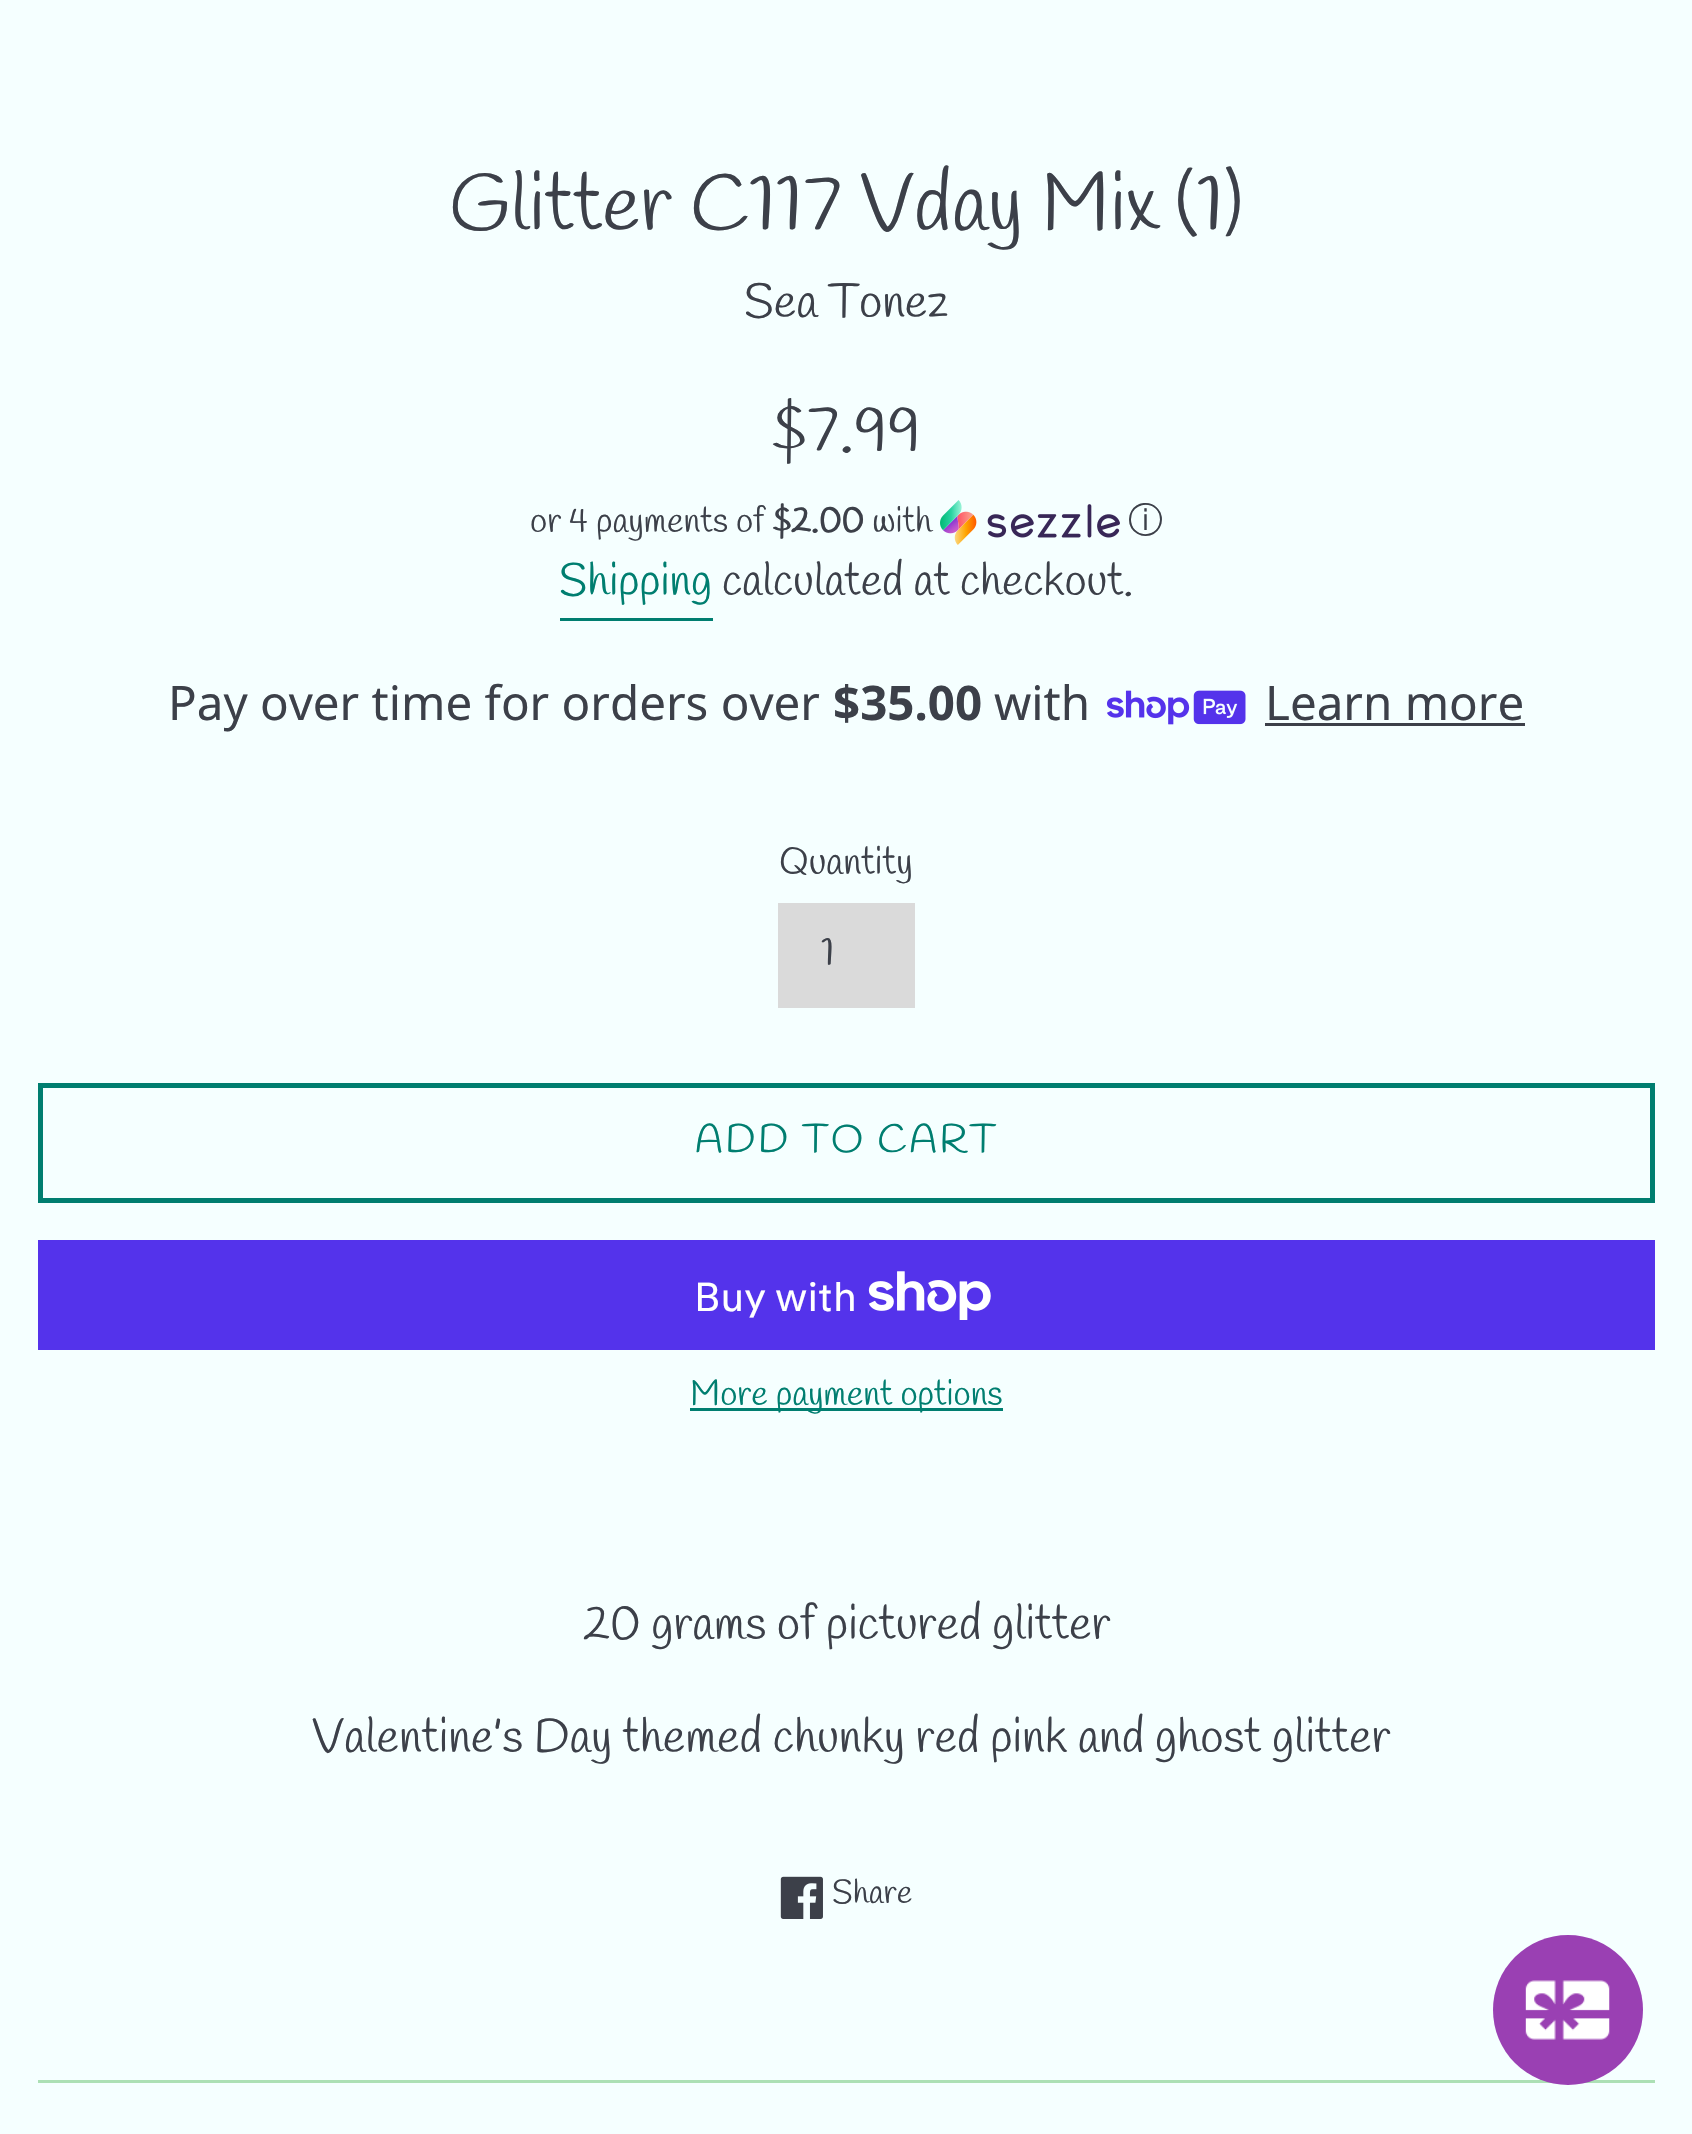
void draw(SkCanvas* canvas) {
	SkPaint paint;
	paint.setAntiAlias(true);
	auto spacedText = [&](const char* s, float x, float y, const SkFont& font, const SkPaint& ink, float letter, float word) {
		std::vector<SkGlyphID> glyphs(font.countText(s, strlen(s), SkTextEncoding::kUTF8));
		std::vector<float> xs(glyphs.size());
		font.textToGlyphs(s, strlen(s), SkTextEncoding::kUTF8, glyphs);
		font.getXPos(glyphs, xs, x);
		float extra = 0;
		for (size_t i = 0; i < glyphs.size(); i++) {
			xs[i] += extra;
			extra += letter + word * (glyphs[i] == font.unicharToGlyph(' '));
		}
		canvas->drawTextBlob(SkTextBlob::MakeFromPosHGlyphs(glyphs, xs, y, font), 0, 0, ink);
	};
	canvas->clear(0xfff5ffff);
	SkFont f1(fontMgr->matchFamilyStyle("Handlee", SkFontStyle::Normal()), 80);
	f1.setSubpixel(true);
	paint.setColor(0xff3c4049);
	canvas->drawString("Glitter C117 Vday Mix (1)", 449, 230, f1, paint);
	SkFont f2(fontMgr->matchFamilyStyle("Handlee", SkFontStyle::Normal()), 47.5);
	f2.setSubpixel(true);
	canvas->drawString("Sea Tonez", 744, 317, f2, paint);
	SkFont f3(fontMgr->matchFamilyStyle("Handlee", SkFontStyle::Normal()), 66.5);
	f3.setSubpixel(true);
	canvas->drawString("$7.99", 771, 451, f3, paint);
	SkFont f4(fontMgr->matchFamilyStyle("Handlee", SkFontStyle::Normal()), 35);
	f4.setSubpixel(true);
	canvas->drawString("or 4 payments of", 530, 532, f4, paint);
	SkFont f5(fontMgr->matchFamilyStyle("Handlee", SkFontStyle::Bold()), 35);
	f5.setSubpixel(true);
	canvas->drawString("$2.00", 772, 532, f5, paint);
	canvas->drawString("with", 872, 532, f4, paint);
	canvas->drawImageRect(SkImages::DeferredFromEncodedData(SkData::MakeFromFileName("img1.png")), SkRect::MakeXYWH(940, 500, 180, 45), SkSamplingOptions());
	SkFont f6(fontMgr->matchFamilyStyle("WenQuanYi Zen Hei", SkFontStyle(500, SkFontStyle::kNormal_Width, SkFontStyle::kUpright_Slant)), 35);
	f6.setSubpixel(true);
	canvas->drawString("ⓘ", 1128, 532, f6, paint);
	SkFont f7(fontMgr->matchFamilyStyle("Handlee", SkFontStyle::Normal()), 45);
	f7.setSubpixel(true);
	paint.setColor(0xff007e70);
	canvas->drawString("Shipping", 559, 595, f7, paint);
	canvas->drawRect(SkRect::MakeXYWH(560, 618, 153, 3), paint);
	paint.setColor(0xff3c4049);
	canvas->drawString("calculated at checkout.", 722, 595, f7, paint);
	SkFont f8(fontMgr->matchFamilyStyle("Noto Sans", SkFontStyle::Normal()), 47.5);
	f8.setSubpixel(true);
	canvas->drawString("Pay over time for orders over", 168, 720, f8, paint);
	SkFont f9(fontMgr->matchFamilyStyle("Noto Sans", SkFontStyle::Bold()), 47.5);
	f9.setSubpixel(true);
	canvas->drawString("$35.00", 833, 720, f9, paint);
	canvas->drawString("with", 994, 720, f8, paint);
	canvas->drawImageRect(SkImages::DeferredFromEncodedData(SkData::MakeFromFileName("img2.png")), SkRect::MakeXYWH(1106, 690, 140, 35), SkSamplingOptions());
	canvas->drawString("Learn more", 1265, 720, f8, paint);
	canvas->drawRect(SkRect::MakeXYWH(1265, 723, 260, 3), paint);
	SkFont f10(fontMgr->matchFamilyStyle("Handlee", SkFontStyle::Normal()), 38);
	f10.setSubpixel(true);
	canvas->drawString("Quantity", 779, 874, f10, paint);
	paint.setColor(0xffdadada);
	canvas->drawRect(SkRect::MakeXYWH(778, 903, 137, 105), paint);
	SkFont f11(fontMgr->matchFamilyStyle("Handlee", SkFontStyle::Normal()), 40);
	f11.setSubpixel(true);
	paint.setColor(0xff3c4049);
	canvas->drawString("1", 821, 965, f11, paint);
	paint.setStroke(true);
	paint.setStrokeWidth(5);
	paint.setColor(0xff007e70);
	canvas->drawRect(SkRect::MakeXYWH(40.5, 1085.5, 1612, 115), paint);
	paint.setStroke(false);
	spacedText("ADD TO CART", 695, 1152, f11, paint, 2.5, 0);
	paint.setColor(0xff5433eb);
	canvas->drawRect(SkRect::MakeXYWH(38, 1240, 1617, 110), paint);
	SkFont f12(fontMgr->matchFamilyStyle("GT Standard", SkFontStyle::Normal()), 40);
	f12.setSubpixel(true);
	paint.setColor(0xffffffff);
	canvas->drawString("Buy with", 694, 1311, f12, paint);
	canvas->drawImageRect(SkImages::DeferredFromEncodedData(SkData::MakeFromFileName("img3.png")), SkRect::MakeXYWH(868, 1271, 123, 49), SkSamplingOptions());
	paint.setColor(0xff007e70);
	canvas->drawRect(SkRect::MakeXYWH(690, 1408, 313, 3), paint);
	canvas->drawString("More payment options", 690, 1405, f4, paint);
	paint.setColor(0xff3c4049);
	canvas->drawString("20 grams of pictured glitter", 583, 1639, f2, paint);
	canvas->drawString("Valentine’s Day themed chunky red pink and ghost glitter", 312, 1752, f2, paint);
	canvas->drawImageRect(SkImages::DeferredFromEncodedData(SkData::MakeFromFileName("img4.png")), SkRect::MakeXYWH(780, 1876, 43, 43), SkSamplingOptions());
	SkFont f13(fontMgr->matchFamilyStyle("Handlee", SkFontStyle::Normal()), 33);
	f13.setSubpixel(true);
	canvas->drawString("Share", 832, 1903, f13, paint);
	paint.setColor(0xfface0b5);
	canvas->drawRect(SkRect::MakeXYWH(38, 2080, 1617, 3), paint);
	paint.setColor(0xff9a40b3);
	canvas->drawCircle(1568, 2010, 75, paint);
	canvas->drawImageRect(SkImages::DeferredFromEncodedData(SkData::MakeFromFileName("img5.png")), SkRect::MakeXYWH(1525, 1980, 85, 60), SkSamplingOptions());
}
